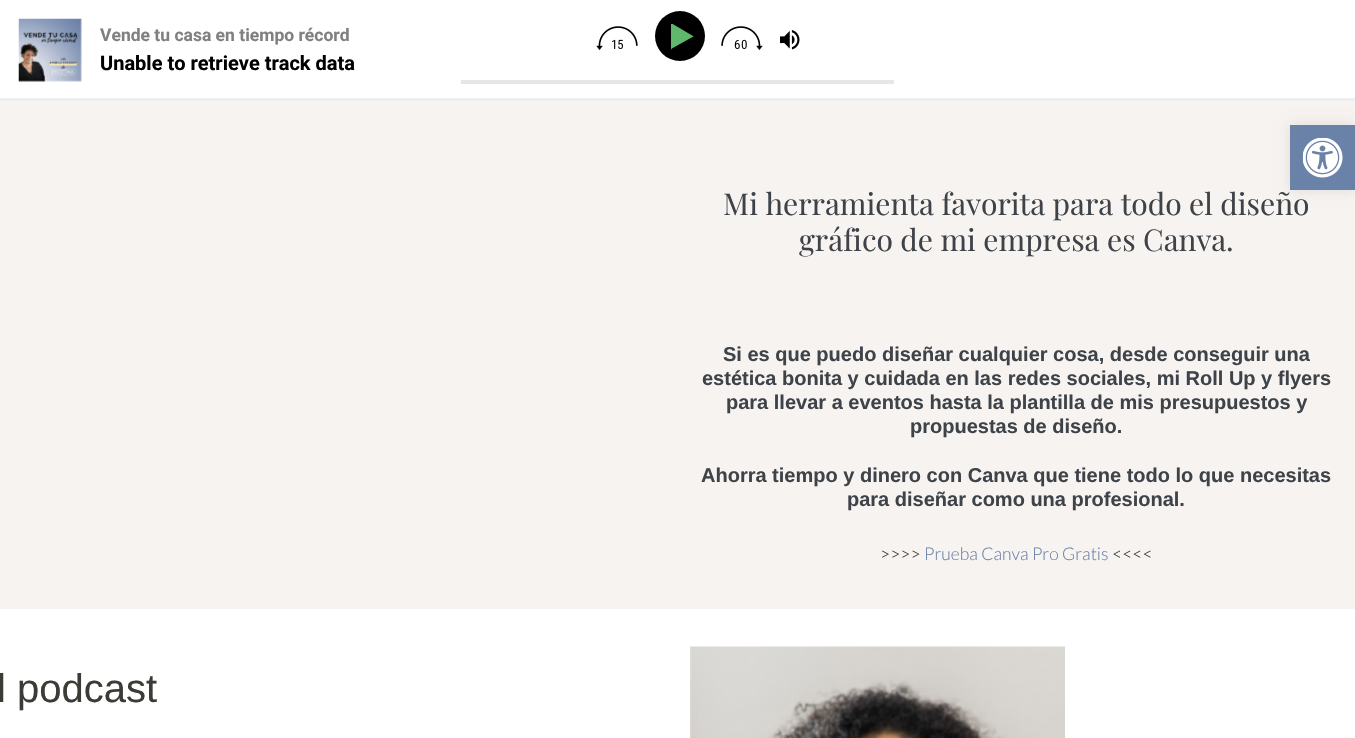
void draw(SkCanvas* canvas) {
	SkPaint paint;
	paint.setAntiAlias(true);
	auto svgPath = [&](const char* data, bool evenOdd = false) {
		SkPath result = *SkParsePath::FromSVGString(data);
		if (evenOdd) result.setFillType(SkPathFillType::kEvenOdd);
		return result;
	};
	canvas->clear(0xfff7f3f0);
	paint.setColor(0xffffffff);
	canvas->drawRect(SkRect::MakeXYWH(0, 0, 1355, 98), paint);
	paint.setColor(0xffeeeeee);
	canvas->drawRect(SkRect::MakeXYWH(0, 98, 1355, 3), paint);
	canvas->drawImageRect(SkImages::DeferredFromEncodedData(SkData::MakeFromFileName("img1.png")), SkRect::MakeXYWH(18, 18, 64, 64), SkSamplingOptions());
	SkFont f1(fontMgr->matchFamilyStyle("Roboto", SkFontStyle::Bold()), 17.5);
	f1.setSubpixel(true);
	paint.setColor(0xff808080);
	canvas->drawString("Vende tu casa en tiempo récord", 100, 41, f1, paint);
	SkFont f2(fontMgr->matchFamilyStyle("Roboto", SkFontStyle::Bold()), 20);
	f2.setSubpixel(true);
	paint.setColor(0xff000000);
	canvas->drawString("Unable to retrieve track data", 100, 70, f2, paint);
	canvas->drawImageRect(SkImages::DeferredFromEncodedData(SkData::MakeFromFileName("img2.png")), SkRect::MakeXYWH(596, 26, 42, 24), SkSamplingOptions());
	canvas->drawCircle(680, 36, 25, paint);
	paint.setColor(0xff60b86c);
	canvas->drawRect(SkRect::MakeXYWH(671, 24, 9, 26), paint);
	canvas->drawRect(SkRect::MakeXYWH(680, 28, 15, 16), paint);
	canvas->save();
	canvas->clipRect(SkRect::MakeXYWH(664, 20, 32, 33));
	paint.setColor(0xff000000);
	canvas->drawPath(svgPath("M684 1L718 20L705 43L671 23Z"), paint);
	canvas->drawPath(svgPath("M671 49L705 30L718 52L684 72Z"), paint);
	canvas->restore();
	canvas->drawImageRect(SkImages::DeferredFromEncodedData(SkData::MakeFromFileName("img3.png")), SkRect::MakeXYWH(721, 26, 42, 24), SkSamplingOptions());
	canvas->drawImageRect(SkImages::DeferredFromEncodedData(SkData::MakeFromFileName("img4.png")), SkRect::MakeXYWH(780, 30, 20, 20), SkSamplingOptions());
	paint.setColor(0xffe6e6e6);
	canvas->drawRect(SkRect::MakeXYWH(461, 80, 433, 4), paint);
	paint.setColor(0x1a000000);
	paint.setMaskFilter(SkMaskFilter::MakeBlur(kNormal_SkBlurStyle, 6));
	canvas->drawRect(SkRect::MakeXYWH(1290, 125, 65, 65), paint);
	paint.setMaskFilter(nullptr);
	paint.setColor(0xff6b82a8);
	canvas->drawRect(SkRect::MakeXYWH(1290, 125, 65, 65), paint);
	canvas->drawImageRect(SkImages::DeferredFromEncodedData(SkData::MakeFromFileName("img5.png")), SkRect::MakeXYWH(1303, 138, 40, 40), SkSamplingOptions());
	SkFont f3(fontMgr->matchFamilyStyle("Playfair Display", SkFontStyle::Normal()), 30);
	f3.setSubpixel(true);
	paint.setColor(0xff3e4349);
	canvas->drawString("Mi herramienta favorita para todo el diseño", 723, 215, f3, paint);
	canvas->drawString("gráfico de mi empresa es Canva.", 799, 251, f3, paint);
	SkFont f4(fontMgr->matchFamilyStyle("Liberation Sans", SkFontStyle::Bold()), 20);
	f4.setSubpixel(true);
	canvas->drawString("Si es que puedo diseñar cualquier cosa, desde conseguir una", 723, 361, f4, paint);
	canvas->drawString("estética bonita y cuidada en las redes sociales, mi Roll Up y flyers", 702, 385, f4, paint);
	canvas->drawString("para llevar a eventos hasta la plantilla de mis presupuestos y", 726, 409, f4, paint);
	canvas->drawString("propuestas de diseño.", 910, 433, f4, paint);
	canvas->drawString("Ahorra tiempo y dinero con Canva que tiene todo lo que necesitas", 701, 482, f4, paint);
	canvas->drawString("para diseñar como una profesional.", 847, 506, f4, paint);
	SkFont f5(fontMgr->matchFamilyStyle("Lato", SkFontStyle(300, SkFontStyle::kNormal_Width, SkFontStyle::kUpright_Slant)), 17.5);
	f5.setSubpixel(true);
	paint.setColor(0xff3b3c36);
	canvas->drawString(">>>>", 880, 560, f5, paint);
	paint.setColor(0xff6b82a8);
	canvas->drawString("Prueba Canva Pro Gratis", 924, 560, f5, paint);
	paint.setColor(0xff3b3c36);
	canvas->drawString("<<<<", 1112, 560, f5, paint);
	paint.setColor(0xffffffff);
	canvas->drawRect(SkRect::MakeXYWH(0, 609, 1355, 129), paint);
	SkFont f6(fontMgr->matchFamilyStyle("Liberation Sans", SkFontStyle::Normal()), 40);
	f6.setSubpixel(true);
	paint.setColor(0xff3b3c36);
	canvas->drawString("l podcast", -3, 702, f6, paint);
	canvas->drawImageRect(SkImages::DeferredFromEncodedData(SkData::MakeFromFileName("img6.png")), SkRect::MakeXYWH(690, 646, 375, 92), SkSamplingOptions());
}
